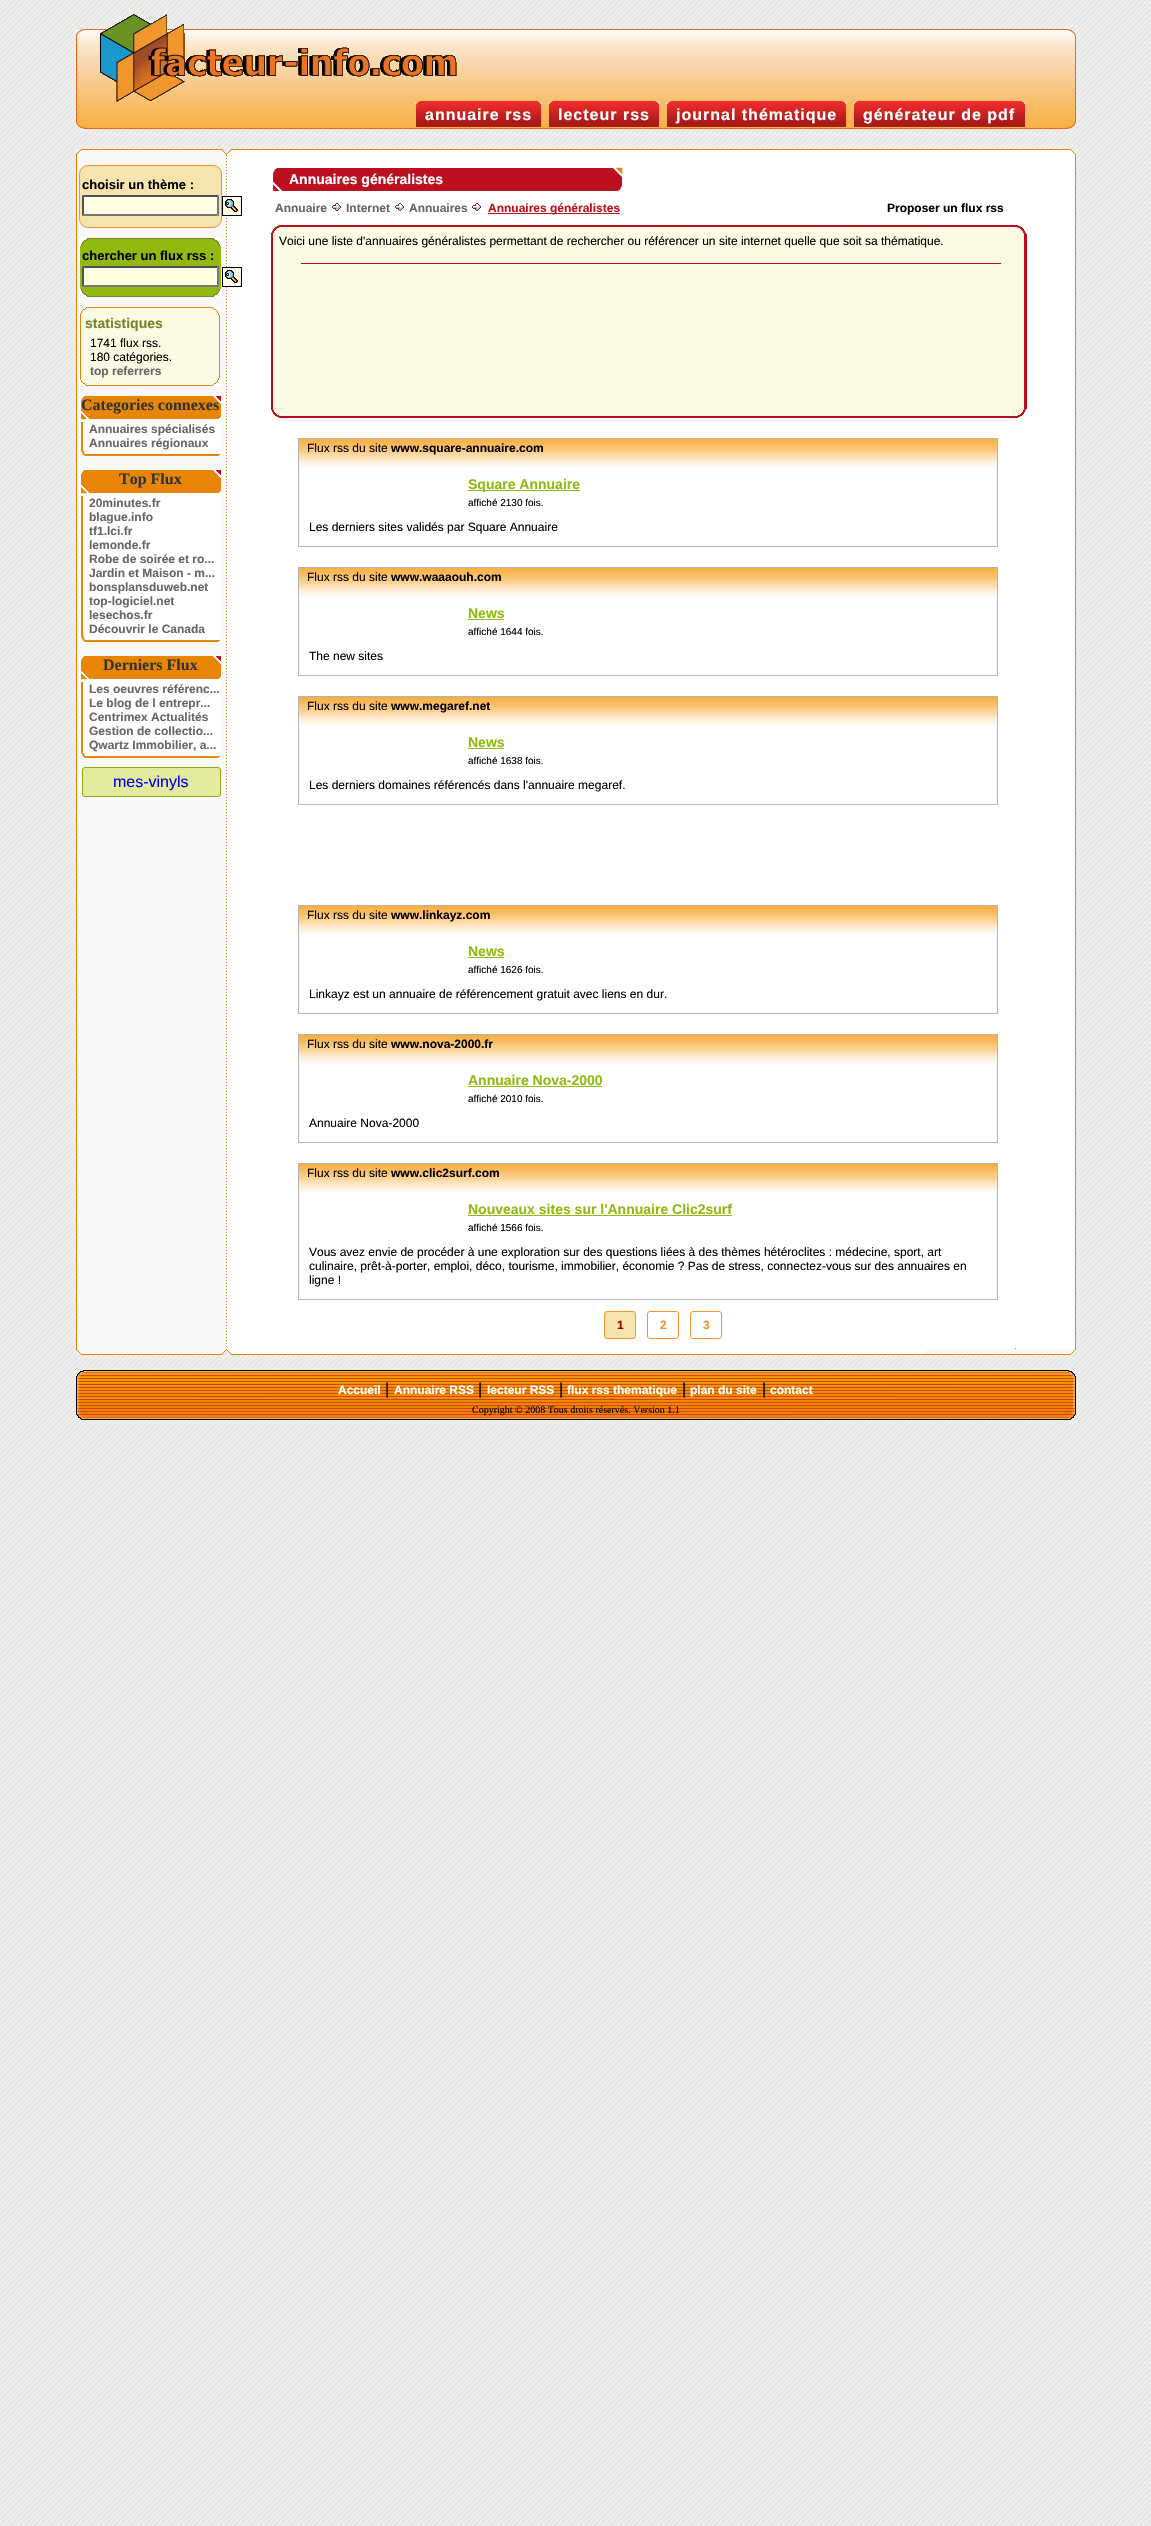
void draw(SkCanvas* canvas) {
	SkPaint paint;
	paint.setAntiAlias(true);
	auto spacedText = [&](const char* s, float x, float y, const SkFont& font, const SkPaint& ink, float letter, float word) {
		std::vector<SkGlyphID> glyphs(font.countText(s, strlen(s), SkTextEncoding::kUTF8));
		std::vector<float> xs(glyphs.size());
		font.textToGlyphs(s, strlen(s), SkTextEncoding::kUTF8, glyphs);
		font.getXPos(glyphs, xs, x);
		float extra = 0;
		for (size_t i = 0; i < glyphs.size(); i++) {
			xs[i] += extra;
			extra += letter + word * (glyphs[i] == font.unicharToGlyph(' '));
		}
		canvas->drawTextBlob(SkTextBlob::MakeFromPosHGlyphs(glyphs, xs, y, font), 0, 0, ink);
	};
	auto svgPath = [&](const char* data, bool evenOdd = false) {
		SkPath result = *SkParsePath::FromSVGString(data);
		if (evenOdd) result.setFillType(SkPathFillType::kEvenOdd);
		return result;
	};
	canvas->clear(0xffffffff);
	canvas->drawImageRect(SkImages::DeferredFromEncodedData(SkData::MakeFromFileName("img1.png")), SkRect::MakeXYWH(0, 0, 1151, 2526), SkSamplingOptions());
	canvas->drawImageRect(SkImages::DeferredFromEncodedData(SkData::MakeFromFileName("img2.png")), SkRect::MakeXYWH(76, 29, 1000, 100), SkSamplingOptions());
	canvas->drawImageRect(SkImages::DeferredFromEncodedData(SkData::MakeFromFileName("img4.png")), SkRect::MakeXYWH(415, 101, 22, 26), SkSamplingOptions());
	canvas->drawImageRect(SkImages::DeferredFromEncodedData(SkData::MakeFromFileName("img5.png")), SkRect::MakeXYWH(437, 101, 105, 26), SkSamplingOptions());
	canvas->drawImageRect(SkImages::DeferredFromEncodedData(SkData::MakeFromFileName("img3.png")), SkRect::MakeXYWH(100, 14, 357, 88), SkSamplingOptions());
	SkFont f1(fontMgr->matchFamilyStyle("Liberation Sans", SkFontStyle::Bold()), 16);
	f1.setSubpixel(true);
	paint.setColor(0xffffffff);
	spacedText("annuaire rss", 425, 120, f1, paint, 1, 0);
	canvas->drawImageRect(SkImages::DeferredFromEncodedData(SkData::MakeFromFileName("img4.png")), SkRect::MakeXYWH(548, 101, 22, 26), SkSamplingOptions());
	canvas->drawImageRect(SkImages::DeferredFromEncodedData(SkData::MakeFromFileName("img6.png")), SkRect::MakeXYWH(570, 101, 90, 26), SkSamplingOptions());
	spacedText("lecteur rss", 558, 120, f1, paint, 1, 0);
	canvas->drawImageRect(SkImages::DeferredFromEncodedData(SkData::MakeFromFileName("img4.png")), SkRect::MakeXYWH(666, 101, 22, 26), SkSamplingOptions());
	canvas->drawImageRect(SkImages::DeferredFromEncodedData(SkData::MakeFromFileName("img7.png")), SkRect::MakeXYWH(688, 101, 159, 26), SkSamplingOptions());
	spacedText("journal thématique", 676, 120, f1, paint, 1, 0);
	canvas->drawImageRect(SkImages::DeferredFromEncodedData(SkData::MakeFromFileName("img4.png")), SkRect::MakeXYWH(853, 101, 22, 26), SkSamplingOptions());
	canvas->drawImageRect(SkImages::DeferredFromEncodedData(SkData::MakeFromFileName("img8.png")), SkRect::MakeXYWH(875, 101, 151, 26), SkSamplingOptions());
	spacedText("générateur de pdf", 863, 120, f1, paint, 1, 0);
	canvas->drawImageRect(SkImages::DeferredFromEncodedData(SkData::MakeFromFileName("img9.png")), SkRect::MakeXYWH(76, 149, 1000, 6), SkSamplingOptions());
	canvas->drawImageRect(SkImages::DeferredFromEncodedData(SkData::MakeFromFileName("img10.png")), SkRect::MakeXYWH(76, 155, 1000, 1194), SkSamplingOptions());
	paint.setColor(0xfff6e4ae);
	canvas->drawRoundRect(SkRect::MakeXYWH(79.5, 165.5, 142, 62), 8.5, 8.5, paint);
	paint.setStroke(true);
	paint.setStrokeWidth(1);
	paint.setColor(0xfff1942d);
	canvas->drawRoundRect(SkRect::MakeXYWH(79.5, 165.5, 142, 62), 8.5, 8.5, paint);
	SkFont f2(fontMgr->matchFamilyStyle("Liberation Sans", SkFontStyle::Bold()), 13);
	f2.setSubpixel(true);
	paint.setStroke(false);
	paint.setColor(0xff000000);
	canvas->drawString("choisir un thème :", 82, 189, f2, paint);
	paint.setColor(0xfffefee2);
	canvas->drawRect(SkRect::MakeXYWH(82, 195, 137, 21), paint);
	paint.setColor(0xff4f4f4f);
	canvas->drawPath(svgPath("M82 195H219L217 197H84Z"), paint);
	paint.setColor(0xff767676);
	canvas->drawPath(svgPath("M219 195V216L217 214V197Z"), paint);
	canvas->drawPath(svgPath("M219 216H82L84 214H217Z"), paint);
	paint.setColor(0xff4f4f4f);
	canvas->drawPath(svgPath("M82 216V195L84 197V214Z"), paint);
	paint.setColor(0xfffefee2);
	canvas->drawRect(SkRect::MakeXYWH(224, 198, 16, 16), paint);
	canvas->drawImageRect(SkImages::DeferredFromEncodedData(SkData::MakeFromFileName("img11.png")), SkRect::MakeXYWH(222, 196, 20, 20), SkSamplingOptions());
	paint.setColor(0xff92b910);
	canvas->drawRect(SkRect::MakeXYWH(80, 246, 141, 43), paint);
	paint.setColor(0xffffffff);
	canvas->drawRect(SkRect::MakeXYWH(80, 238, 141, 8), paint);
	canvas->drawImageRect(SkImages::DeferredFromEncodedData(SkData::MakeFromFileName("img12.png")), SkRect::MakeXYWH(81, 238, 139, 8), SkSamplingOptions());
	paint.setColor(0xff000000);
	canvas->drawString("chercher un flux rss :", 82, 260, f2, paint);
	paint.setColor(0xfffefee2);
	canvas->drawRect(SkRect::MakeXYWH(82, 266, 137, 21), paint);
	paint.setColor(0xff4f4f4f);
	canvas->drawPath(svgPath("M82 266H219L217 268H84Z"), paint);
	paint.setColor(0xff767676);
	canvas->drawPath(svgPath("M219 266V287L217 285V268Z"), paint);
	canvas->drawPath(svgPath("M219 287H82L84 285H217Z"), paint);
	paint.setColor(0xff4f4f4f);
	canvas->drawPath(svgPath("M82 287V266L84 268V285Z"), paint);
	paint.setColor(0xfffefee2);
	canvas->drawRect(SkRect::MakeXYWH(224, 269, 16, 16), paint);
	canvas->drawImageRect(SkImages::DeferredFromEncodedData(SkData::MakeFromFileName("img11.png")), SkRect::MakeXYWH(222, 267, 20, 20), SkSamplingOptions());
	paint.setColor(0xffffffff);
	canvas->drawRect(SkRect::MakeXYWH(80, 289, 141, 8), paint);
	canvas->drawImageRect(SkImages::DeferredFromEncodedData(SkData::MakeFromFileName("img13.png")), SkRect::MakeXYWH(81, 289, 139, 8), SkSamplingOptions());
	canvas->drawImageRect(SkImages::DeferredFromEncodedData(SkData::MakeFromFileName("img14.png")), SkRect::MakeXYWH(80, 315, 140, 63), SkSamplingOptions());
	canvas->drawRect(SkRect::MakeXYWH(80, 307, 141, 8), paint);
	canvas->drawImageRect(SkImages::DeferredFromEncodedData(SkData::MakeFromFileName("img15.png")), SkRect::MakeXYWH(80, 307, 139, 8), SkSamplingOptions());
	SkFont f3(fontMgr->matchFamilyStyle("Liberation Sans", SkFontStyle::Bold()), 14);
	f3.setSubpixel(true);
	paint.setColor(0xff72862d);
	canvas->drawString("statistiques", 85, 328, f3, paint);
	SkFont f4(fontMgr->matchFamilyStyle("Liberation Sans", SkFontStyle::Normal()), 12);
	f4.setSubpixel(true);
	paint.setColor(0xff000000);
	canvas->drawString("1741 flux rss.", 90, 347, f4, paint);
	canvas->drawString("180 catégories.", 90, 361, f4, paint);
	SkFont f5(fontMgr->matchFamilyStyle("Liberation Sans", SkFontStyle::Bold()), 12);
	f5.setSubpixel(true);
	paint.setColor(0xff666666);
	canvas->drawString("top referrers", 90, 375, f5, paint);
	paint.setColor(0xffffffff);
	canvas->drawRect(SkRect::MakeXYWH(80, 378, 141, 8), paint);
	canvas->drawImageRect(SkImages::DeferredFromEncodedData(SkData::MakeFromFileName("img16.png")), SkRect::MakeXYWH(80, 378, 139, 8), SkSamplingOptions());
	canvas->drawImageRect(SkImages::DeferredFromEncodedData(SkData::MakeFromFileName("img17.png")), SkRect::MakeXYWH(81, 396, 140, 26), SkSamplingOptions());
	SkFont f6(fontMgr->matchFamilyStyle("Liberation Serif", SkFontStyle::Bold()), 16);
	f6.setSubpixel(true);
	paint.setColor(0xff333333);
	canvas->drawString("Categories connexes", 81, 410, f6, paint);
	canvas->drawImageRect(SkImages::DeferredFromEncodedData(SkData::MakeFromFileName("img18.png")), SkRect::MakeXYWH(81, 422, 140, 28), SkSamplingOptions());
	paint.setColor(0xff666666);
	canvas->drawString("Annuaires spécialisés", 89, 433, f5, paint);
	canvas->drawString("Annuaires régionaux", 89, 447, f5, paint);
	canvas->drawImageRect(SkImages::DeferredFromEncodedData(SkData::MakeFromFileName("img19.png")), SkRect::MakeXYWH(81, 450, 139, 7), SkSamplingOptions());
	canvas->drawImageRect(SkImages::DeferredFromEncodedData(SkData::MakeFromFileName("img17.png")), SkRect::MakeXYWH(81, 470, 140, 26), SkSamplingOptions());
	paint.setColor(0xff333333);
	canvas->drawString("Top Flux", 119, 484, f6, paint);
	canvas->drawImageRect(SkImages::DeferredFromEncodedData(SkData::MakeFromFileName("img20.png")), SkRect::MakeXYWH(81, 496, 140, 140), SkSamplingOptions());
	paint.setColor(0xff666666);
	canvas->drawString("20minutes.fr", 89, 507, f5, paint);
	canvas->drawString("blague.info", 89, 521, f5, paint);
	canvas->drawString("tf1.lci.fr", 89, 535, f5, paint);
	canvas->drawString("lemonde.fr", 89, 549, f5, paint);
	canvas->drawString("Robe de soirée et ro...", 89, 563, f5, paint);
	canvas->drawString("Jardin et Maison - m...", 89, 577, f5, paint);
	canvas->drawString("bonsplansduweb.net", 89, 591, f5, paint);
	canvas->drawString("top-logiciel.net", 89, 605, f5, paint);
	canvas->drawString("lesechos.fr", 89, 619, f5, paint);
	canvas->drawString("Découvrir le Canada", 89, 633, f5, paint);
	canvas->drawImageRect(SkImages::DeferredFromEncodedData(SkData::MakeFromFileName("img19.png")), SkRect::MakeXYWH(81, 636, 139, 7), SkSamplingOptions());
	canvas->drawImageRect(SkImages::DeferredFromEncodedData(SkData::MakeFromFileName("img17.png")), SkRect::MakeXYWH(81, 656, 140, 26), SkSamplingOptions());
	paint.setColor(0xff333333);
	canvas->drawString("Derniers Flux", 103, 670, f6, paint);
	canvas->drawImageRect(SkImages::DeferredFromEncodedData(SkData::MakeFromFileName("img21.png")), SkRect::MakeXYWH(81, 682, 140, 70), SkSamplingOptions());
	paint.setColor(0xff666666);
	canvas->drawString("Les oeuvres référenc...", 89, 693, f5, paint);
	canvas->drawString("Le blog de l entrepr...", 89, 707, f5, paint);
	canvas->drawString("Centrimex Actualités", 89, 721, f5, paint);
	canvas->drawString("Gestion de collectio...", 89, 735, f5, paint);
	canvas->drawString("Qwartz Immobilier, a...", 89, 749, f5, paint);
	canvas->drawImageRect(SkImages::DeferredFromEncodedData(SkData::MakeFromFileName("img19.png")), SkRect::MakeXYWH(81, 752, 139, 7), SkSamplingOptions());
	paint.setColor(0xffe5eb9c);
	canvas->drawRoundRect(SkRect::MakeXYWH(82.5, 767.5, 138, 29), 2.5, 2.5, paint);
	paint.setStroke(true);
	paint.setColor(0xff98a21b);
	canvas->drawRoundRect(SkRect::MakeXYWH(82.5, 767.5, 138, 29), 2.5, 2.5, paint);
	SkFont f7(fontMgr->matchFamilyStyle("Liberation Sans", SkFontStyle::Normal()), 16);
	f7.setSubpixel(true);
	paint.setStroke(false);
	paint.setColor(0xff0000ee);
	canvas->drawString("mes-vinyls", 113, 787, f7, paint);
	canvas->drawImageRect(SkImages::DeferredFromEncodedData(SkData::MakeFromFileName("img22.png")), SkRect::MakeXYWH(273, 167, 350, 24), SkSamplingOptions());
	paint.setColor(0xffffffff);
	canvas->drawString("Annuaires généralistes", 289, 184, f3, paint);
	paint.setColor(0xff666666);
	canvas->drawString("Annuaire", 275, 212, f5, paint);
	canvas->drawImageRect(SkImages::DeferredFromEncodedData(SkData::MakeFromFileName("img23.png")), SkRect::MakeXYWH(332, 203, 9, 8), SkSamplingOptions());
	canvas->drawString("Internet", 346, 212, f5, paint);
	canvas->drawImageRect(SkImages::DeferredFromEncodedData(SkData::MakeFromFileName("img23.png")), SkRect::MakeXYWH(395, 203, 9, 8), SkSamplingOptions());
	canvas->drawString("Annuaires", 409, 212, f5, paint);
	canvas->drawImageRect(SkImages::DeferredFromEncodedData(SkData::MakeFromFileName("img23.png")), SkRect::MakeXYWH(472, 203, 9, 8), SkSamplingOptions());
	paint.setColor(0xffbc1020);
	canvas->drawRect(SkRect::MakeXYWH(488, 213, 132, 1), paint);
	canvas->drawString("Annuaires généralistes", 488, 212, f5, paint);
	paint.setColor(0xff000000);
	canvas->drawString("Proposer un flux rss", 887, 212, f5, paint);
	canvas->drawImageRect(SkImages::DeferredFromEncodedData(SkData::MakeFromFileName("img24.png")), SkRect::MakeXYWH(271, 225, 755, 9), SkSamplingOptions());
	canvas->drawImageRect(SkImages::DeferredFromEncodedData(SkData::MakeFromFileName("img25.png")), SkRect::MakeXYWH(271, 234, 756, 175), SkSamplingOptions());
	canvas->drawString("Voici une liste d'annuaires généralistes permettant de rechercher ou référencer un site internet quelle que soit sa thématique.", 279, 245, f4, paint);
	paint.setColor(0xffbc1020);
	canvas->drawRect(SkRect::MakeXYWH(301, 263, 700, 1), paint);
	canvas->drawImageRect(SkImages::DeferredFromEncodedData(SkData::MakeFromFileName("img26.png")), SkRect::MakeXYWH(271, 409, 755, 9), SkSamplingOptions());
	paint.setStroke(true);
	paint.setColor(0xffb3b3b3);
	canvas->drawRect(SkRect::MakeXYWH(298.5, 438.5, 699, 108), paint);
	canvas->drawImageRect(SkImages::DeferredFromEncodedData(SkData::MakeFromFileName("img27.png")), SkRect::MakeXYWH(299, 439, 698, 29), SkSamplingOptions());
	paint.setStroke(false);
	paint.setColor(0xff000000);
	canvas->drawString("Flux rss du site", 307, 452, f4, paint);
	canvas->drawString("www.square-annuaire.com", 391, 452, f5, paint);
	paint.setColor(0xff92b910);
	canvas->drawRect(SkRect::MakeXYWH(468, 490, 112, 1), paint);
	canvas->drawString("Square Annuaire", 468, 489, f3, paint);
	SkFont f8(fontMgr->matchFamilyStyle("Liberation Sans", SkFontStyle::Normal()), 10);
	f8.setSubpixel(true);
	paint.setColor(0xff000000);
	canvas->drawString("affiché 2130 fois.", 468, 506, f8, paint);
	canvas->drawString("Les derniers sites validés par Square Annuaire", 309, 531, f4, paint);
	paint.setStroke(true);
	paint.setColor(0xffb3b3b3);
	canvas->drawRect(SkRect::MakeXYWH(298.5, 567.5, 699, 108), paint);
	canvas->drawImageRect(SkImages::DeferredFromEncodedData(SkData::MakeFromFileName("img27.png")), SkRect::MakeXYWH(299, 568, 698, 29), SkSamplingOptions());
	paint.setStroke(false);
	paint.setColor(0xff000000);
	canvas->drawString("Flux rss du site", 307, 581, f4, paint);
	canvas->drawString("www.waaaouh.com", 391, 581, f5, paint);
	paint.setColor(0xff92b910);
	canvas->drawString("News", 468, 618, f3, paint);
	canvas->drawRect(SkRect::MakeXYWH(468, 619, 36, 1), paint);
	paint.setColor(0xff000000);
	canvas->drawString("affiché 1644 fois.", 468, 635, f8, paint);
	canvas->drawString("The new sites", 309, 660, f4, paint);
	paint.setStroke(true);
	paint.setColor(0xffb3b3b3);
	canvas->drawRect(SkRect::MakeXYWH(298.5, 696.5, 699, 108), paint);
	canvas->drawImageRect(SkImages::DeferredFromEncodedData(SkData::MakeFromFileName("img27.png")), SkRect::MakeXYWH(299, 697, 698, 29), SkSamplingOptions());
	paint.setStroke(false);
	paint.setColor(0xff000000);
	canvas->drawString("Flux rss du site", 307, 710, f4, paint);
	canvas->drawString("www.megaref.net", 391, 710, f5, paint);
	paint.setColor(0xff92b910);
	canvas->drawString("News", 468, 747, f3, paint);
	canvas->drawRect(SkRect::MakeXYWH(468, 748, 36, 1), paint);
	paint.setColor(0xff000000);
	canvas->drawString("affiché 1638 fois.", 468, 764, f8, paint);
	canvas->drawString("Les derniers domaines référencés dans l'annuaire megaref.", 309, 789, f4, paint);
	paint.setStroke(true);
	paint.setColor(0xffb3b3b3);
	canvas->drawRect(SkRect::MakeXYWH(298.5, 905.5, 699, 108), paint);
	canvas->drawImageRect(SkImages::DeferredFromEncodedData(SkData::MakeFromFileName("img27.png")), SkRect::MakeXYWH(299, 906, 698, 29), SkSamplingOptions());
	paint.setStroke(false);
	paint.setColor(0xff000000);
	canvas->drawString("Flux rss du site", 307, 919, f4, paint);
	canvas->drawString("www.linkayz.com", 391, 919, f5, paint);
	paint.setColor(0xff92b910);
	canvas->drawString("News", 468, 956, f3, paint);
	canvas->drawRect(SkRect::MakeXYWH(468, 957, 36, 1), paint);
	paint.setColor(0xff000000);
	canvas->drawString("affiché 1626 fois.", 468, 973, f8, paint);
	canvas->drawString("Linkayz est un annuaire de référencement gratuit avec liens en dur.", 309, 998, f4, paint);
	paint.setStroke(true);
	paint.setColor(0xffb3b3b3);
	canvas->drawRect(SkRect::MakeXYWH(298.5, 1034.5, 699, 108), paint);
	canvas->drawImageRect(SkImages::DeferredFromEncodedData(SkData::MakeFromFileName("img27.png")), SkRect::MakeXYWH(299, 1035, 698, 29), SkSamplingOptions());
	paint.setStroke(false);
	paint.setColor(0xff000000);
	canvas->drawString("Flux rss du site", 307, 1048, f4, paint);
	canvas->drawString("www.nova-2000.fr", 391, 1048, f5, paint);
	paint.setColor(0xff92b910);
	canvas->drawString("Annuaire Nova-2000", 468, 1085, f3, paint);
	canvas->drawRect(SkRect::MakeXYWH(468, 1086, 134, 1), paint);
	paint.setColor(0xff000000);
	canvas->drawString("affiché 2010 fois.", 468, 1102, f8, paint);
	canvas->drawString("Annuaire Nova-2000", 309, 1127, f4, paint);
	paint.setStroke(true);
	paint.setColor(0xffb3b3b3);
	canvas->drawRect(SkRect::MakeXYWH(298.5, 1163.5, 699, 136), paint);
	canvas->drawImageRect(SkImages::DeferredFromEncodedData(SkData::MakeFromFileName("img27.png")), SkRect::MakeXYWH(299, 1164, 698, 29), SkSamplingOptions());
	paint.setStroke(false);
	paint.setColor(0xff000000);
	canvas->drawString("Flux rss du site", 307, 1177, f4, paint);
	canvas->drawString("www.clic2surf.com", 391, 1177, f5, paint);
	paint.setColor(0xff92b910);
	canvas->drawString("Nouveaux sites sur l'Annuaire Clic2surf", 468, 1214, f3, paint);
	canvas->drawRect(SkRect::MakeXYWH(468, 1215, 264, 1), paint);
	paint.setColor(0xff000000);
	canvas->drawString("affiché 1566 fois.", 468, 1231, f8, paint);
	canvas->drawString("Vous avez envie de procéder à une exploration sur des questions liées à des thèmes hétéroclites : médecine, sport, art", 309, 1256, f4, paint);
	canvas->drawString("culinaire, prêt-à-porter, emploi, déco, tourisme, immobilier, économie ? Pas de stress, connectez-vous sur des annuaires en", 309, 1270, f4, paint);
	canvas->drawString("ligne !", 309, 1284, f4, paint);
	paint.setColor(0xfff6e4ae);
	canvas->drawRoundRect(SkRect::MakeXYWH(604.5, 1311.5, 31, 27), 2.5, 2.5, paint);
	paint.setStroke(true);
	paint.setColor(0xfff2952d);
	canvas->drawRoundRect(SkRect::MakeXYWH(604.5, 1311.5, 31, 27), 2.5, 2.5, paint);
	paint.setStroke(false);
	paint.setColor(0xff990000);
	canvas->drawString("1", 617, 1329, f5, paint);
	paint.setStroke(true);
	paint.setColor(0xfff2952d);
	canvas->drawRoundRect(SkRect::MakeXYWH(647.5, 1311.5, 31, 27), 2.5, 2.5, paint);
	paint.setStroke(false);
	canvas->drawString("2", 660, 1329, f5, paint);
	paint.setStroke(true);
	canvas->drawRoundRect(SkRect::MakeXYWH(690.5, 1311.5, 31, 27), 2.5, 2.5, paint);
	paint.setStroke(false);
	canvas->drawString("3", 703, 1329, f5, paint);
	paint.setColor(0xffe98504);
	canvas->drawRect(SkRect::MakeXYWH(1015, 1348, 1, 1), paint);
	canvas->drawImageRect(SkImages::DeferredFromEncodedData(SkData::MakeFromFileName("img28.png")), SkRect::MakeXYWH(76, 1349, 1000, 6), SkSamplingOptions());
	canvas->drawImageRect(SkImages::DeferredFromEncodedData(SkData::MakeFromFileName("img29.png")), SkRect::MakeXYWH(76, 1370, 1000, 50), SkSamplingOptions());
	paint.setColor(0xffffffff);
	canvas->drawString("Accueil", 338, 1394, f5, paint);
	paint.setColor(0xff000000);
	canvas->drawString("|", 385, 1394, f7, paint);
	paint.setColor(0xffffffff);
	canvas->drawString("Annuaire RSS", 394, 1394, f5, paint);
	paint.setColor(0xff000000);
	canvas->drawString("|", 478, 1394, f7, paint);
	paint.setColor(0xffffffff);
	canvas->drawString("lecteur RSS", 487, 1394, f5, paint);
	paint.setColor(0xff000000);
	canvas->drawString("|", 559, 1394, f7, paint);
	paint.setColor(0xffffffff);
	canvas->drawString("flux rss thematique", 567, 1394, f5, paint);
	paint.setColor(0xff000000);
	canvas->drawString("|", 682, 1394, f7, paint);
	paint.setColor(0xffffffff);
	canvas->drawString("plan du site", 690, 1394, f5, paint);
	paint.setColor(0xff000000);
	canvas->drawString("|", 762, 1394, f7, paint);
	paint.setColor(0xffffffff);
	canvas->drawString("contact", 770, 1394, f5, paint);
	SkFont f9(fontMgr->matchFamilyStyle("Liberation Serif", SkFontStyle::Normal()), 10);
	f9.setSubpixel(true);
	paint.setColor(0xff000000);
	canvas->drawString("Copyright © 2008 Tous droits réservés. Version 1.1", 472, 1413, f9, paint);
}
